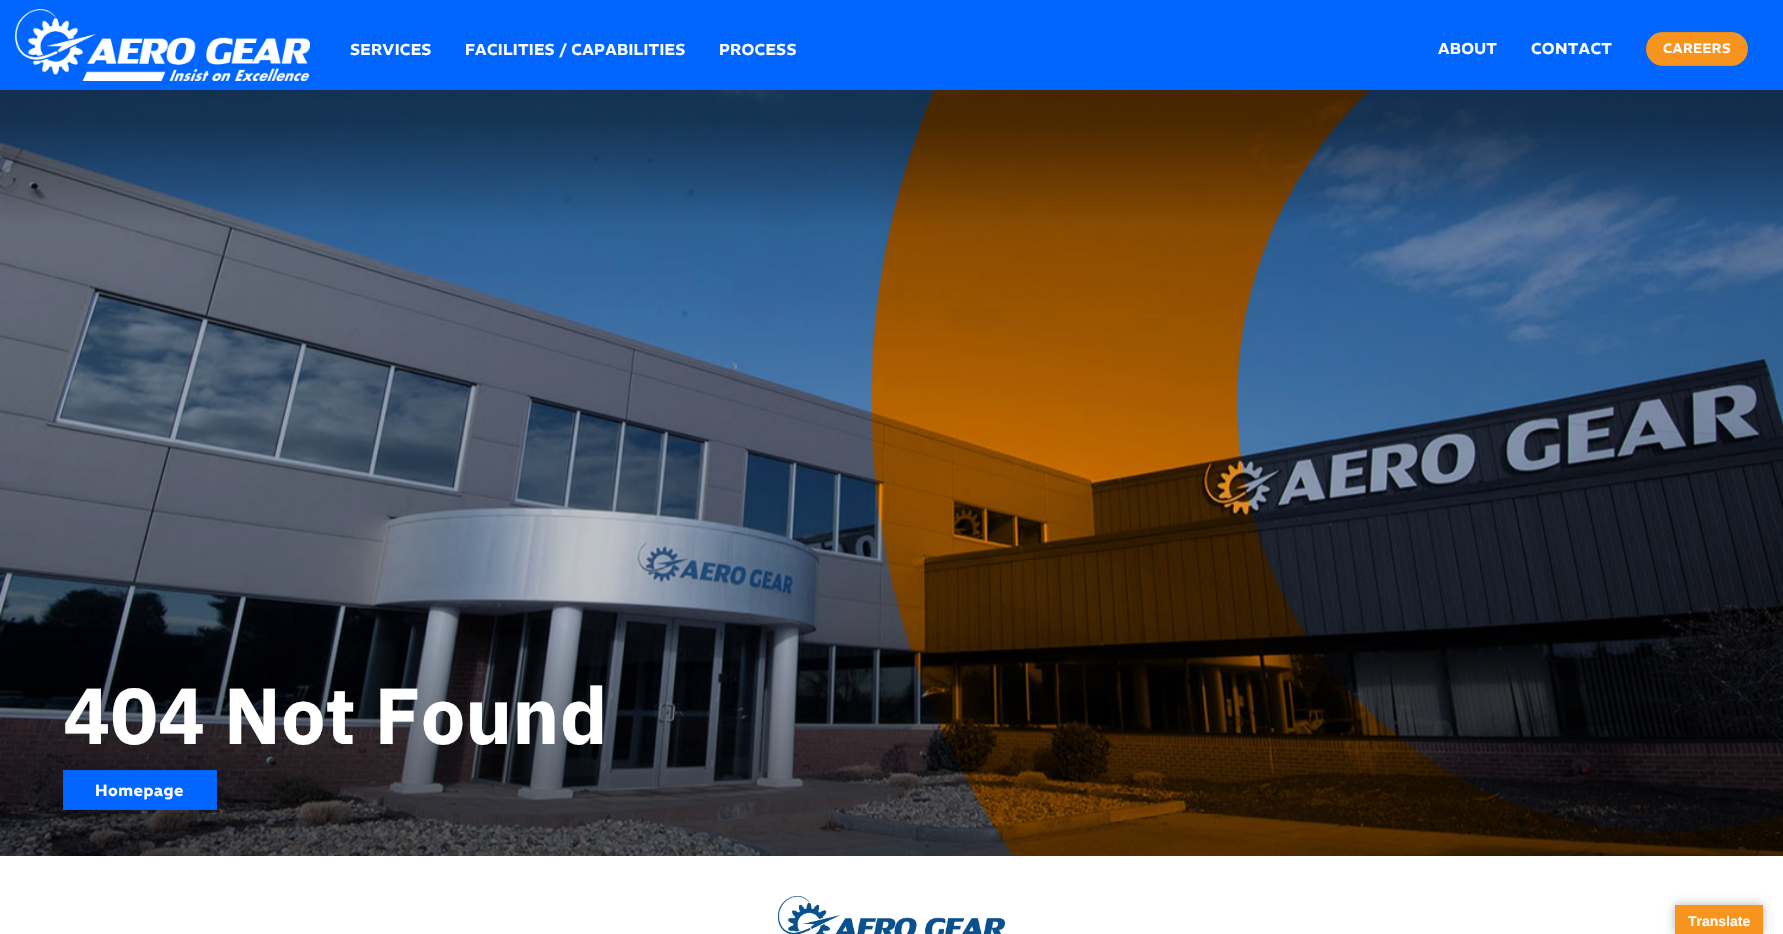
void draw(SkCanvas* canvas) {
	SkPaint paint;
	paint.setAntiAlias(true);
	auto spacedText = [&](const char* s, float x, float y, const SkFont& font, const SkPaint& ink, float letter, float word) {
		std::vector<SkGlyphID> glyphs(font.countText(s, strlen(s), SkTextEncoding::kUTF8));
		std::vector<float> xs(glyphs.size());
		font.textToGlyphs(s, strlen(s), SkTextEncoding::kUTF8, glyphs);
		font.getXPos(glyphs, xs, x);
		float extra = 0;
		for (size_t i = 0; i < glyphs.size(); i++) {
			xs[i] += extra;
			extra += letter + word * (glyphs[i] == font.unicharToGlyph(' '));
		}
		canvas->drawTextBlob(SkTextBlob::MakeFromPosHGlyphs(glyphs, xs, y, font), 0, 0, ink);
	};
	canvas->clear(0xffffffff);
	paint.setColor(0xff0066ff);
	canvas->drawRect(SkRect::MakeXYWH(0, 0, 1783, 90), paint);
	canvas->drawImageRect(SkImages::DeferredFromEncodedData(SkData::MakeFromFileName("img1.png")), SkRect::MakeXYWH(15, 9, 295, 72), SkSamplingOptions());
	SkFont f1(fontMgr->matchFamilyStyle("REM", SkFontStyle(600, SkFontStyle::kNormal_Width, SkFontStyle::kUpright_Slant)), 15.7);
	f1.setSubpixel(true);
	paint.setColor(0xffffffff);
	spacedText("SERVICES", 350, 55, f1, paint, 0.3, 0);
	spacedText("FACILITIES / CAPABILITIES", 465, 55, f1, paint, 0.3, 0);
	spacedText("PROCESS", 719, 55, f1, paint, 0.3, 0);
	spacedText("ABOUT", 1438, 54, f1, paint, 0.3, 0);
	spacedText("CONTACT", 1531, 54, f1, paint, 0.3, 0);
	paint.setColor(0xfff7941d);
	canvas->drawRoundRect(SkRect::MakeXYWH(1646, 32, 102, 34), 17, 17, paint);
	paint.setStroke(true);
	paint.setStrokeWidth(1);
	paint.setColor(0x0d000000);
	canvas->drawRect(SkRect::MakeXYWH(1646.5, 32.5, 101, 33), paint);
	SkFont f2(fontMgr->matchFamilyStyle("REM", SkFontStyle(600, SkFontStyle::kNormal_Width, SkFontStyle::kUpright_Slant)), 13.5);
	f2.setSubpixel(true);
	paint.setStroke(false);
	paint.setColor(0xffffffff);
	spacedText("CAREERS", 1663, 53, f2, paint, 0.5, 0);
	canvas->drawImageRect(SkImages::DeferredFromEncodedData(SkData::MakeFromFileName("img2.png")), SkRect::MakeXYWH(0, 90, 1783, 766), SkSamplingOptions());
	SkFont f3(fontMgr->matchFamilyStyle("IBM Plex Sans", SkFontStyle::Bold()), 79);
	f3.setSubpixel(true);
	canvas->drawString("404 Not Found", 63, 744, f3, paint);
	paint.setColor(0xff0066ff);
	canvas->drawRect(SkRect::MakeXYWH(63.5, 770.5, 153, 39), paint);
	paint.setStroke(true);
	paint.setColor(0xff0061f2);
	canvas->drawRect(SkRect::MakeXYWH(63.5, 770.5, 153, 39), paint);
	SkFont f4(fontMgr->matchFamilyStyle("REM", SkFontStyle(600, SkFontStyle::kNormal_Width, SkFontStyle::kUpright_Slant)), 16);
	f4.setSubpixel(true);
	paint.setStroke(false);
	paint.setColor(0xffffffff);
	spacedText("Homepage", 95, 796, f4, paint, 0.5, 0);
	canvas->drawImageRect(SkImages::DeferredFromEncodedData(SkData::MakeFromFileName("img3.png")), SkRect::MakeXYWH(778, 896, 227, 38), SkSamplingOptions());
	paint.setColor(0x4d000000);
	paint.setMaskFilter(SkMaskFilter::MakeBlur(kNormal_SkBlurStyle, 4.5));
	canvas->drawRect(SkRect::MakeXYWH(1675, 905, 88, 29), paint);
	paint.setMaskFilter(nullptr);
	paint.setColor(0xfff7941d);
	canvas->drawRect(SkRect::MakeXYWH(1675, 905, 88, 29), paint);
	SkFont f5(fontMgr->matchFamilyStyle("Liberation Sans", SkFontStyle::Bold()), 14);
	f5.setSubpixel(true);
	paint.setColor(0xffffffff);
	canvas->drawString("Translate", 1688, 926, f5, paint);
}
